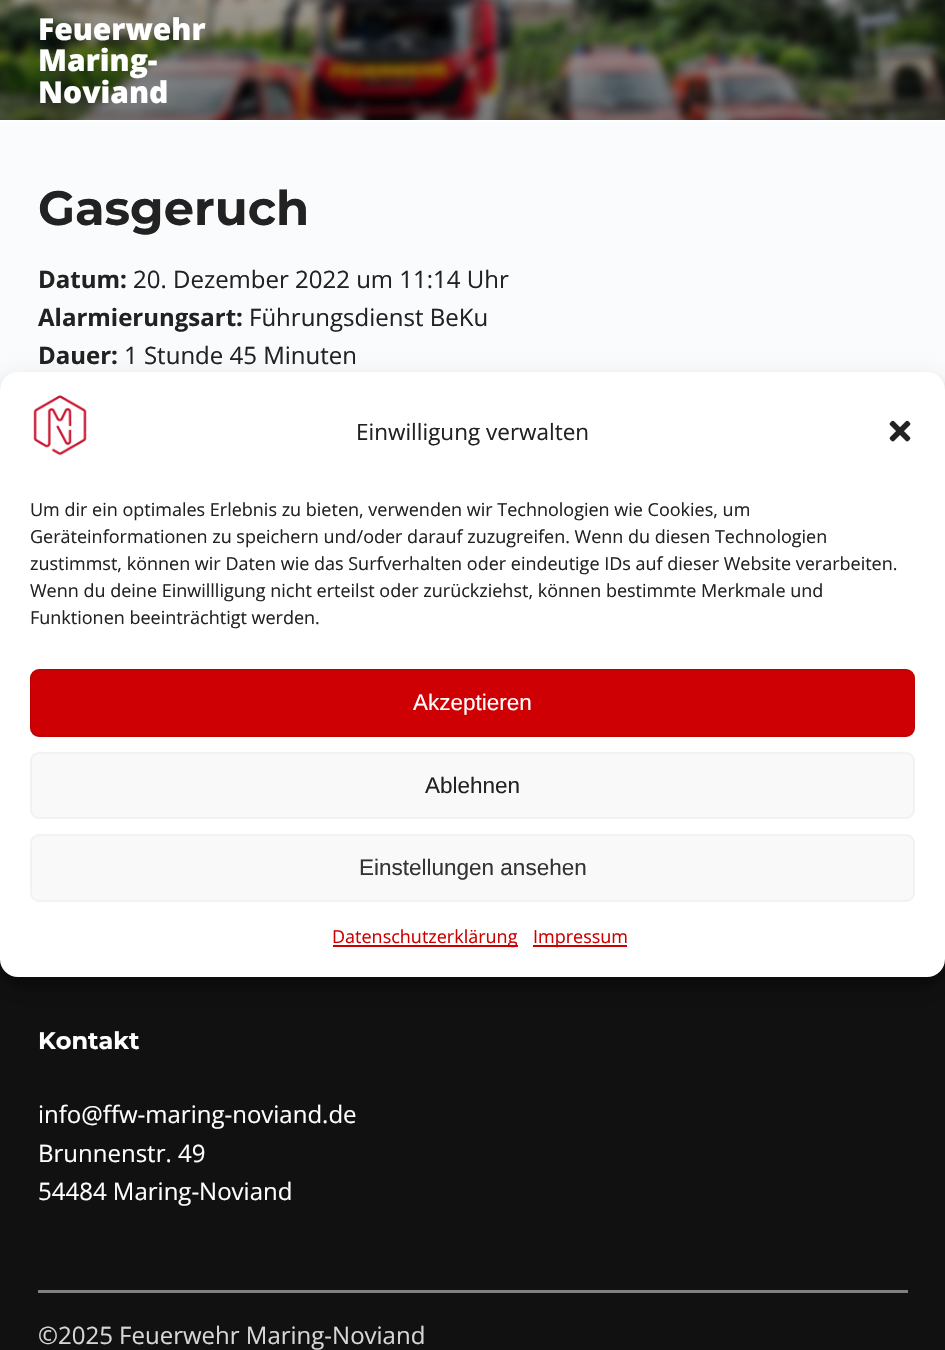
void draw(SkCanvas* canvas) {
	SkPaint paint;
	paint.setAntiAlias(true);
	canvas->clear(0xfffafbfc);
	paint.setColor(0xffffffff);
	canvas->drawRect(SkRect::MakeXYWH(0, 120, 945, 2), paint);
	canvas->drawImageRect(SkImages::DeferredFromEncodedData(SkData::MakeFromFileName("img1.png")), SkRect::MakeXYWH(0, 0, 945, 120), SkSamplingOptions());
	SkFont f1(fontMgr->matchFamilyStyle("Open Sans", SkFontStyle(800, SkFontStyle::kNormal_Width, SkFontStyle::kUpright_Slant)), 30);
	f1.setSubpixel(true);
	canvas->drawString("Feuerwehr", 38, 40, f1, paint);
	canvas->drawString("Maring-", 38, 71, f1, paint);
	canvas->drawString("Noviand", 38, 103, f1, paint);
	SkFont f2(fontMgr->matchFamilyStyle("Montserrat", SkFontStyle::Bold()), 48);
	f2.setSubpixel(true);
	paint.setColor(0xff222222);
	canvas->drawString("Gasgeruch", 38, 225, f2, paint);
	SkFont f3(fontMgr->matchFamilyStyle("Open Sans", SkFontStyle::Bold()), 24);
	f3.setSubpixel(true);
	canvas->drawString("Datum:", 38, 288, f3, paint);
	SkFont f4(fontMgr->matchFamilyStyle("Open Sans", SkFontStyle::Normal()), 24);
	f4.setSubpixel(true);
	canvas->drawString("20. Dezember 2022 um 11:14 Uhr", 133, 288, f4, paint);
	canvas->drawString("Alarmierungsart:", 38, 326, f3, paint);
	canvas->drawString("Führungsdienst BeKu", 249, 326, f4, paint);
	canvas->drawString("Dauer:", 38, 364, f3, paint);
	canvas->drawString("1 Stunde 45 Minuten", 124, 364, f4, paint);
	paint.setColor(0xff111111);
	canvas->drawRect(SkRect::MakeXYWH(0, 959, 945, 391), paint);
	paint.setColor(0x3b000000);
	paint.setMaskFilter(SkMaskFilter::MakeBlur(kNormal_SkBlurStyle, 4.5));
	canvas->drawRoundRect(SkRect::MakeXYWH(0, 381, 945, 605), 18, 18, paint);
	paint.setMaskFilter(nullptr);
	paint.setColor(0x30000000);
	paint.setMaskFilter(SkMaskFilter::MakeBlur(kNormal_SkBlurStyle, 15));
	canvas->drawRoundRect(SkRect::MakeXYWH(0, 387, 945, 605), 18, 18, paint);
	paint.setMaskFilter(nullptr);
	paint.setColor(0xffffffff);
	canvas->drawRoundRect(SkRect::MakeXYWH(0, 372, 945, 605), 18, 18, paint);
	canvas->drawImageRect(SkImages::DeferredFromEncodedData(SkData::MakeFromFileName("img2.png")), SkRect::MakeXYWH(33, 395, 54, 61), SkSamplingOptions());
	SkFont f5(fontMgr->matchFamilyStyle("Open Sans", SkFontStyle::Normal()), 22.5);
	f5.setSubpixel(true);
	paint.setColor(0xff222222);
	canvas->drawString("Einwilligung verwalten", 356, 440, f5, paint);
	canvas->drawImageRect(SkImages::DeferredFromEncodedData(SkData::MakeFromFileName("img3.png")), SkRect::MakeXYWH(889, 420, 22, 22), SkSamplingOptions());
	SkFont f6(fontMgr->matchFamilyStyle("Open Sans", SkFontStyle::Normal()), 18);
	f6.setSubpixel(true);
	canvas->drawString("Um dir ein optimales Erlebnis zu bieten, verwenden wir Technologien wie Cookies, um", 30, 516, f6, paint);
	canvas->drawString("Geräteinformationen zu speichern und/oder darauf zuzugreifen. Wenn du diesen Technologien", 30, 543, f6, paint);
	canvas->drawString("zustimmst, können wir Daten wie das Surfverhalten oder eindeutige IDs auf dieser Website verarbeiten.", 30, 570, f6, paint);
	canvas->drawString("Wenn du deine Einwillligung nicht erteilst oder zurückziehst, können bestimmte Merkmale und", 30, 597, f6, paint);
	canvas->drawString("Funktionen beeinträchtigt werden.", 30, 624, f6, paint);
	paint.setColor(0xffce0003);
	canvas->drawRoundRect(SkRect::MakeXYWH(31, 670, 883, 66), 8, 8, paint);
	paint.setStroke(true);
	paint.setStrokeWidth(2);
	paint.setColor(0xffc00206);
	canvas->drawRoundRect(SkRect::MakeXYWH(31, 670, 883, 66), 8, 8, paint);
	SkFont f7(fontMgr->matchFamilyStyle("Liberation Sans", SkFontStyle::Normal()), 22.5);
	f7.setSubpixel(true);
	paint.setStroke(false);
	paint.setColor(0xffffffff);
	canvas->drawString("Akzeptieren", 413, 710, f7, paint);
	paint.setColor(0xfff9f9f9);
	canvas->drawRoundRect(SkRect::MakeXYWH(31, 753, 883, 65), 8, 8, paint);
	paint.setStroke(true);
	paint.setColor(0xfff2f2f2);
	canvas->drawRoundRect(SkRect::MakeXYWH(31, 753, 883, 65), 8, 8, paint);
	paint.setStroke(false);
	paint.setColor(0xff222222);
	canvas->drawString("Ablehnen", 425, 793, f7, paint);
	paint.setColor(0xfff9f9f9);
	canvas->drawRoundRect(SkRect::MakeXYWH(31, 835, 883, 66), 8, 8, paint);
	paint.setStroke(true);
	paint.setColor(0xfff2f2f2);
	canvas->drawRoundRect(SkRect::MakeXYWH(31, 835, 883, 66), 8, 8, paint);
	paint.setStroke(false);
	paint.setColor(0xff333333);
	canvas->drawString("Einstellungen ansehen", 359, 875, f7, paint);
	paint.setColor(0xffcc0000);
	canvas->drawRect(SkRect::MakeXYWH(333, 945, 185, 2), paint);
	canvas->drawString("Datenschutzerklärung", 332, 943, f6, paint);
	canvas->drawRect(SkRect::MakeXYWH(533, 945, 94, 2), paint);
	canvas->drawString("Impressum", 533, 943, f6, paint);
	SkFont f8(fontMgr->matchFamilyStyle("Montserrat", SkFontStyle::Bold()), 24);
	f8.setSubpixel(true);
	paint.setColor(0xffffffff);
	canvas->drawString("Kontakt", 38, 1049, f8, paint);
	canvas->drawString("info@ffw-maring-noviand.de", 38, 1123, f4, paint);
	canvas->drawString("Brunnenstr. 49", 38, 1162, f4, paint);
	canvas->drawString("54484 Maring-Noviand", 38, 1200, f4, paint);
	paint.setColor(0xff808080);
	canvas->drawRect(SkRect::MakeXYWH(38, 1290, 870, 3), paint);
	paint.setColor(0xffd6d6d6);
	canvas->drawString("©2025 Feuerwehr Maring-Noviand", 38, 1344, f4, paint);
}
